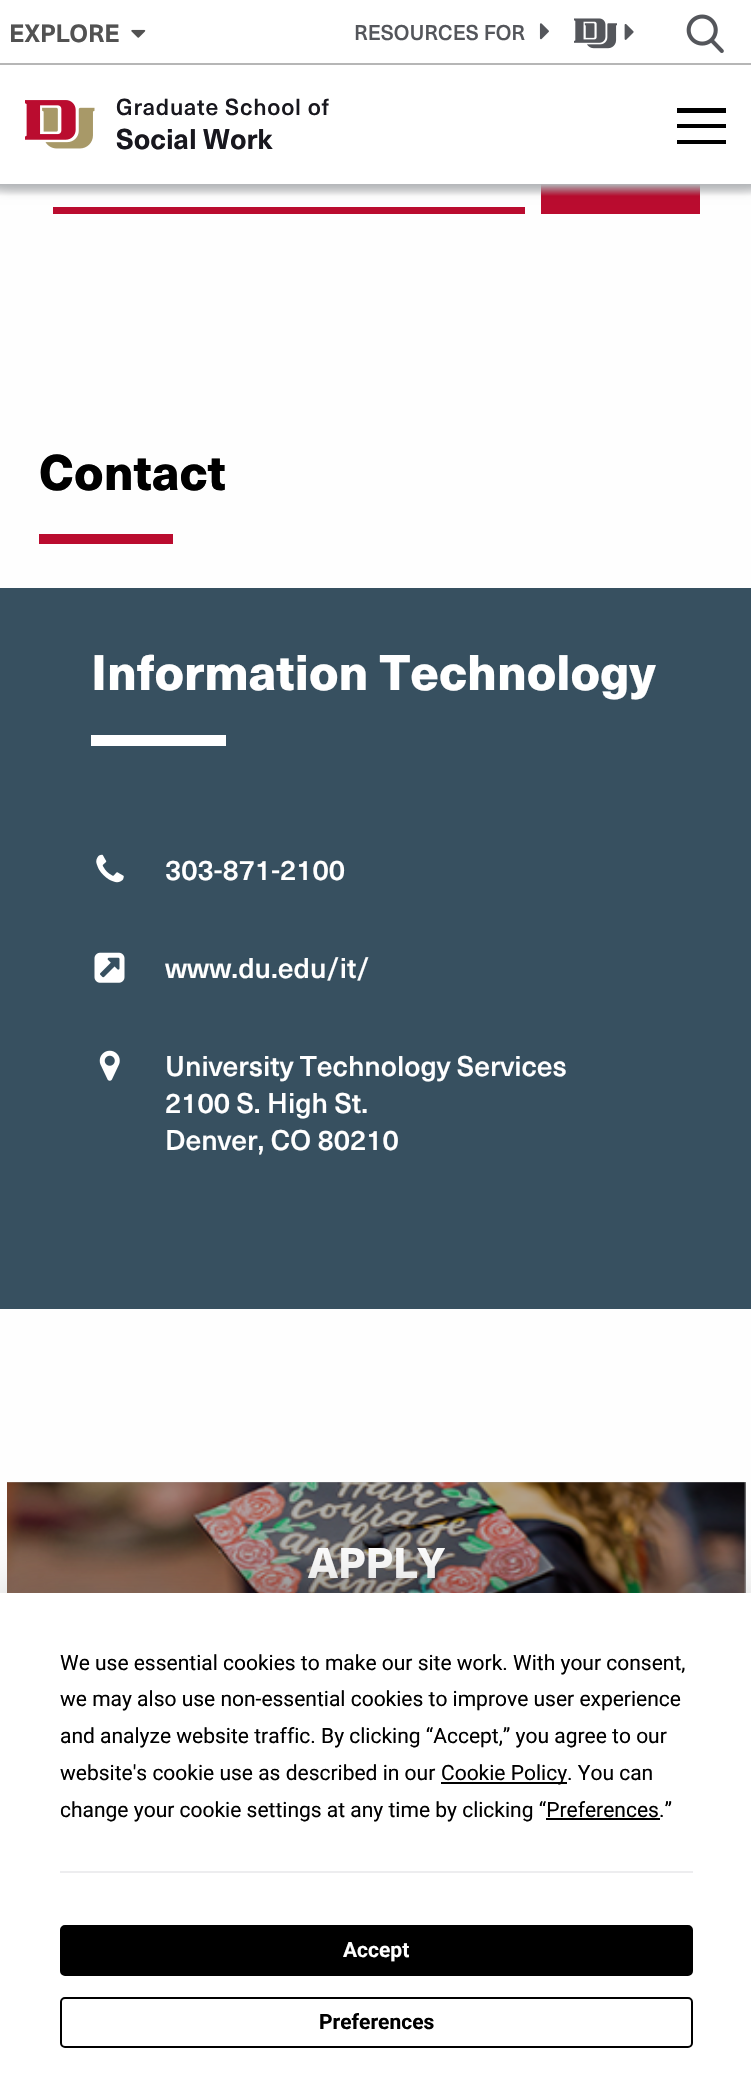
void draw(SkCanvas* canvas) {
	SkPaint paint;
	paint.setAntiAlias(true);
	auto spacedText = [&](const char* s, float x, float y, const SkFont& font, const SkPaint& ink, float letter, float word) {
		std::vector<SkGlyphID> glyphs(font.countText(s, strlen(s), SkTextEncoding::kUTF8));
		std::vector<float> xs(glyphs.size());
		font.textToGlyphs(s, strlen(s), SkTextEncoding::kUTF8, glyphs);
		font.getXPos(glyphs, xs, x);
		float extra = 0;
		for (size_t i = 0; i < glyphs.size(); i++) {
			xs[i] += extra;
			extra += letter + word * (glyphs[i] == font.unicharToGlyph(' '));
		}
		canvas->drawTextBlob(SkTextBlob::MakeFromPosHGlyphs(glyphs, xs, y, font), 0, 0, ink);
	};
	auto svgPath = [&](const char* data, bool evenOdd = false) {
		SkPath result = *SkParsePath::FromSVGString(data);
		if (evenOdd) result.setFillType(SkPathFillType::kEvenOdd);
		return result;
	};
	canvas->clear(0xfffefefe);
	paint.setColor(0xffb2b2b2);
	canvas->drawRect(SkRect::MakeXYWH(7, 1482, 739, 111), paint);
	paint.setColor(0xffba0c2f);
	canvas->drawRect(SkRect::MakeXYWH(541, 184, 159, 30), paint);
	paint.setColor(0x4d000000);
	paint.setMaskFilter(SkMaskFilter::MakeBlur(kNormal_SkBlurStyle, 6));
	canvas->drawRect(SkRect::MakeXYWH(0, 4, 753, 183), paint);
	paint.setMaskFilter(nullptr);
	paint.setColor(0xffffffff);
	canvas->drawRect(SkRect::MakeXYWH(0, 0, 751, 63), paint);
	paint.setColor(0xffb6b6b6);
	canvas->drawRect(SkRect::MakeXYWH(0, 63, 751, 2), paint);
	SkFont f1(fontMgr->matchFamilyStyle("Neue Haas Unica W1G", SkFontStyle::Bold()), 24.5);
	f1.setSubpixel(true);
	paint.setColor(0xff525252);
	canvas->drawString("EXPLORE", 9, 42, f1, paint);
	canvas->drawImageRect(SkImages::DeferredFromEncodedData(SkData::MakeFromFileName("img1.png")), SkRect::MakeXYWH(131, 29, 15, 9), SkSamplingOptions());
	SkFont f2(fontMgr->matchFamilyStyle("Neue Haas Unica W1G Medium", SkFontStyle(500, SkFontStyle::kNormal_Width, SkFontStyle::kUpright_Slant)), 21);
	f2.setSubpixel(true);
	paint.setColor(0xff54565b);
	canvas->drawString("RESOURCES FOR", 354, 40, f2, paint);
	canvas->drawImageRect(SkImages::DeferredFromEncodedData(SkData::MakeFromFileName("img2.png")), SkRect::MakeXYWH(539, 23, 10, 17), SkSamplingOptions());
	canvas->drawImageRect(SkImages::DeferredFromEncodedData(SkData::MakeFromFileName("img3.png")), SkRect::MakeXYWH(574, 18, 43, 31), SkSamplingOptions());
	canvas->drawImageRect(SkImages::DeferredFromEncodedData(SkData::MakeFromFileName("img4.png")), SkRect::MakeXYWH(624, 24, 10, 16), SkSamplingOptions());
	canvas->drawImageRect(SkImages::DeferredFromEncodedData(SkData::MakeFromFileName("img5.png")), SkRect::MakeXYWH(686, 14, 38, 39), SkSamplingOptions());
	paint.setColor(0xffffffff);
	canvas->drawRect(SkRect::MakeXYWH(0, 65, 751, 119), paint);
	canvas->drawImageRect(SkImages::DeferredFromEncodedData(SkData::MakeFromFileName("img6.png")), SkRect::MakeXYWH(25, 100, 70, 49), SkSamplingOptions());
	SkFont f3(fontMgr->matchFamilyStyle("Neue Haas Unica W1G Medium", SkFontStyle(500, SkFontStyle::kNormal_Width, SkFontStyle::kUpright_Slant)), 22.75);
	f3.setSubpixel(true);
	paint.setColor(0xff18171e);
	spacedText("Graduate School of", 116, 115, f3, paint, 0.75, 0);
	SkFont f4(fontMgr->matchFamilyStyle("Neue Haas Unica W1G", SkFontStyle::Bold()), 28);
	f4.setSubpixel(true);
	canvas->drawString("Social Work", 116, 149, f4, paint);
	paint.setColor(0xff000000);
	canvas->drawPath(svgPath("M677 108H726V113H677ZM677 124H726V128H677ZM677 140H726V144H677Z"), paint);
	{
		const SkColor colors[] = {0xffb5b7ba, 0x00b5b7ba};
		const float stops[] = {0, 0.5};
		const SkPoint ends[] = {{376, 184}, {376, 208}};
		paint.setShader(SkGradientShader::MakeLinear(ends, colors, stops, 2, SkTileMode::kClamp));
		paint.setAlpha(255);
	}
	canvas->drawRect(SkRect::MakeXYWH(0, 184, 751, 12), paint);
	paint.setShader(nullptr);
	paint.setColor(0xffba0c2f);
	canvas->drawRect(SkRect::MakeXYWH(53, 207, 472, 7), paint);
	SkFont f5(fontMgr->matchFamilyStyle("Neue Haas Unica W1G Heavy", SkFontStyle(900, SkFontStyle::kNormal_Width, SkFontStyle::kUpright_Slant)), 49);
	f5.setSubpixel(true);
	paint.setColor(0xff000000);
	canvas->drawString("Contact", 39, 490, f5, paint);
	paint.setColor(0xffba0c2f);
	canvas->drawRect(SkRect::MakeXYWH(39, 534, 134, 10), paint);
	paint.setColor(0xff375060);
	canvas->drawRect(SkRect::MakeXYWH(0, 588, 751, 721), paint);
	paint.setColor(0xffffffff);
	canvas->drawString("Information Technology", 91, 690, f5, paint);
	canvas->drawRect(SkRect::MakeXYWH(91, 735, 135, 11), paint);
	canvas->drawImageRect(SkImages::DeferredFromEncodedData(SkData::MakeFromFileName("img7.png")), SkRect::MakeXYWH(96, 854, 28, 29), SkSamplingOptions());
	SkFont f6(fontMgr->matchFamilyStyle("Neue Haas Unica W1G Medium", SkFontStyle(500, SkFontStyle::kNormal_Width, SkFontStyle::kUpright_Slant)), 28);
	f6.setSubpixel(true);
	canvas->drawString("303-871-2100", 165, 880, f6, paint);
	canvas->drawImageRect(SkImages::DeferredFromEncodedData(SkData::MakeFromFileName("img8.png")), SkRect::MakeXYWH(94, 952, 31, 31), SkSamplingOptions());
	canvas->drawString("www.du.edu/it/", 165, 978, f6, paint);
	canvas->drawImageRect(SkImages::DeferredFromEncodedData(SkData::MakeFromFileName("img9.png")), SkRect::MakeXYWH(99, 1050, 21, 31), SkSamplingOptions());
	canvas->drawString("University Technology Services", 165, 1076, f6, paint);
	canvas->drawString("2100 S. High St.", 165, 1113, f6, paint);
	canvas->drawString("Denver, CO 80210", 165, 1150, f6, paint);
	canvas->drawImageRect(SkImages::DeferredFromEncodedData(SkData::MakeFromFileName("img10.png")), SkRect::MakeXYWH(7, 1482, 739, 111), SkSamplingOptions());
	SkFont f7(fontMgr->matchFamilyStyle("Neue Haas Unica W1G Heavy", SkFontStyle(900, SkFontStyle::kNormal_Width, SkFontStyle::kUpright_Slant)), 42);
	f7.setSubpixel(true);
	canvas->drawString("APPLY", 308, 1578, f7, paint);
	paint.setColor(0x40000000);
	paint.setMaskFilter(SkMaskFilter::MakeBlur(kNormal_SkBlurStyle, 30.5));
	canvas->drawRect(SkRect::MakeXYWH(0, 1593, 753, 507), paint);
	paint.setMaskFilter(nullptr);
	paint.setColor(0xffffffff);
	canvas->drawRect(SkRect::MakeXYWH(0, 1593, 751, 506), paint);
	SkFont f8(fontMgr->matchFamilyStyle("Roboto", SkFontStyle::Normal()), 21);
	f8.setSubpixel(true);
	paint.setColor(0xff000000);
	canvas->drawString("We use essential cookies to make our site work. With your consent,", 60, 1670, f8, paint);
	canvas->drawString("we may also use non-essential cookies to improve user experience", 60, 1706, f8, paint);
	canvas->drawString("and analyze website traffic. By clicking “Accept,” you agree to our", 60, 1743, f8, paint);
	canvas->drawString("website's cookie use as described in our", 60, 1780, f8, paint);
	canvas->drawRect(SkRect::MakeXYWH(441, 1782, 126, 2), paint);
	canvas->drawString("Cookie Policy. You can", 441, 1780, f8, paint);
	canvas->drawString("change your cookie settings at any time by clicking “Preferences.”", 60, 1817, f8, paint);
	canvas->drawRect(SkRect::MakeXYWH(546, 1818, 114, 2), paint);
	paint.setColor(0xffededef);
	canvas->drawRect(SkRect::MakeXYWH(60, 1871, 633, 2), paint);
	paint.setColor(0xff000000);
	canvas->drawRoundRect(SkRect::MakeXYWH(61, 1926, 631, 49), 4, 4, paint);
	paint.setStroke(true);
	paint.setStrokeWidth(2);
	canvas->drawRoundRect(SkRect::MakeXYWH(61, 1926, 631, 49), 4, 4, paint);
	SkFont f9(fontMgr->matchFamilyStyle("Roboto", SkFontStyle::Bold()), 21);
	f9.setSubpixel(true);
	paint.setStroke(false);
	paint.setColor(0xffffffff);
	canvas->drawString("Accept", 343, 1957, f9, paint);
	paint.setStroke(true);
	paint.setColor(0xff000000);
	canvas->drawRoundRect(SkRect::MakeXYWH(61, 1998, 631, 49), 4, 4, paint);
	paint.setStroke(false);
	canvas->drawString("Preferences", 319, 2029, f9, paint);
}
